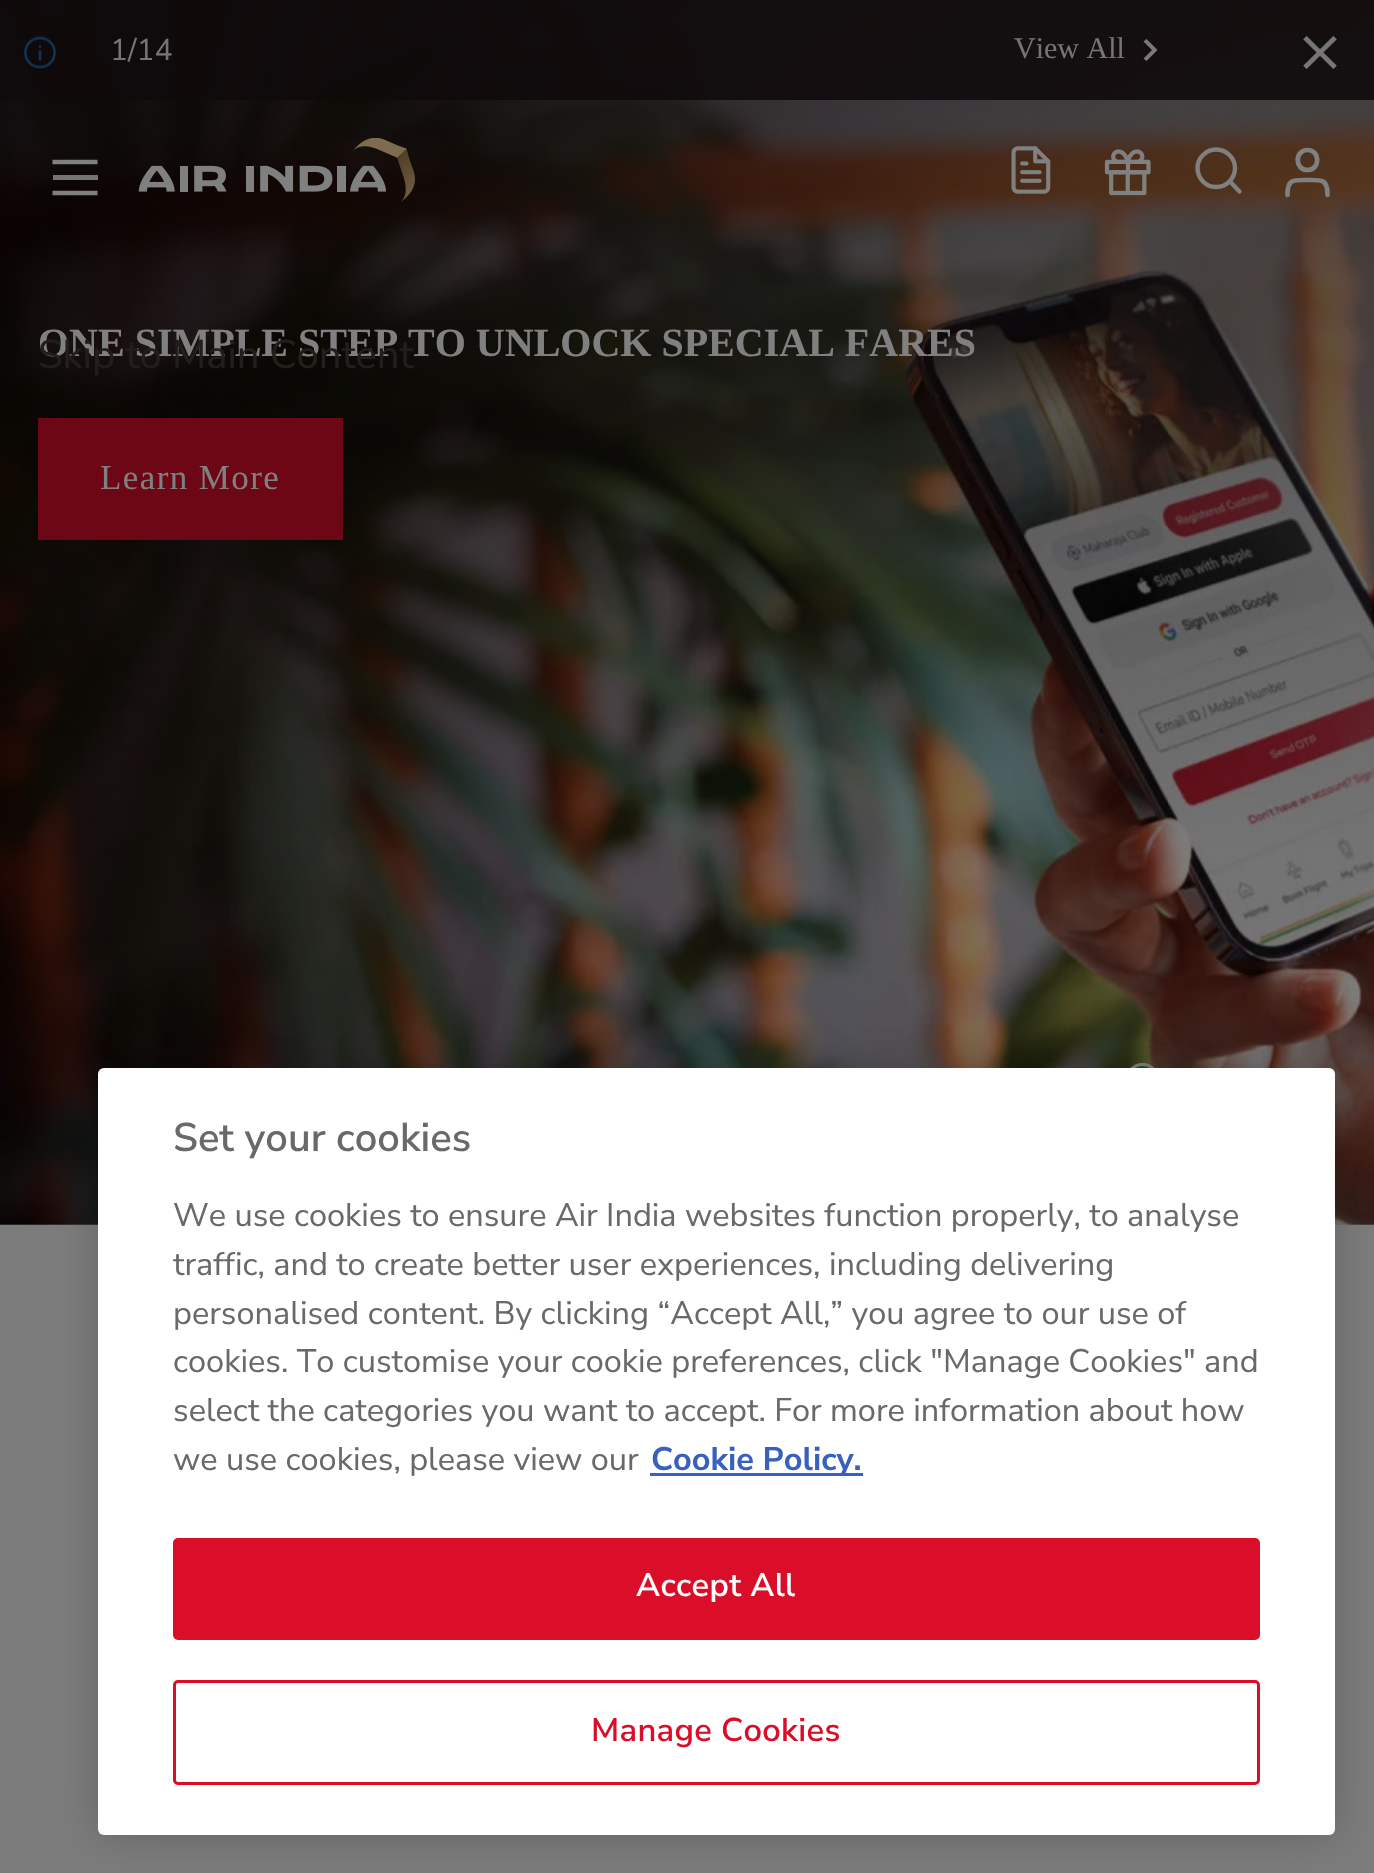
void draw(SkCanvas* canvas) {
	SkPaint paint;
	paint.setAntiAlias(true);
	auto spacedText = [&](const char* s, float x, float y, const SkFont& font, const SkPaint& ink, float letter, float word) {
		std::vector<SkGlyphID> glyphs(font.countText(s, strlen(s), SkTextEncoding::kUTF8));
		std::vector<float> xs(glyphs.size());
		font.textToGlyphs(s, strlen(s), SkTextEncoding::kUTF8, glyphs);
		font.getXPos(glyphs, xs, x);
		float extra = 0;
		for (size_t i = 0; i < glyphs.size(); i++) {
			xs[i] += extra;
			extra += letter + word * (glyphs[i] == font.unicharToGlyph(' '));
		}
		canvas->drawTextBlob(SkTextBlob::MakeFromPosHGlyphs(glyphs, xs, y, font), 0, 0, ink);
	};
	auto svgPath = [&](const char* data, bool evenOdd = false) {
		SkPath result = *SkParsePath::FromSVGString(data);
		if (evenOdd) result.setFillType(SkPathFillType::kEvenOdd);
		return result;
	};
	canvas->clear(0xff7c7c7c);
	canvas->drawImageRect(SkImages::DeferredFromEncodedData(SkData::MakeFromFileName("img3.png")), SkRect::MakeXYWH(0, 0, 1374, 1225), SkSamplingOptions());
	paint.setColor(0xe60e090a);
	canvas->drawRect(SkRect::MakeXYWH(0, 0, 1374, 100), paint);
	canvas->drawImageRect(SkImages::DeferredFromEncodedData(SkData::MakeFromFileName("img1.png")), SkRect::MakeXYWH(24, 36, 32, 33), SkSamplingOptions());
	SkFont f1(fontMgr->matchFamilyStyle("Nunito Sans", SkFontStyle::Normal()), 30);
	f1.setSubpixel(true);
	paint.setColor(0xff747474);
	canvas->drawString("1/14", 110, 60, f1, paint);
	SkFont f2(fontMgr->matchFamilyStyle("Liberation Serif", SkFontStyle::Normal()), 30);
	f2.setSubpixel(true);
	canvas->drawString("View All", 1014, 58, f2, paint);
	paint.setColor(0xff797979);
	canvas->drawPath(svgPath("M1143.5 58.5L1152 50L1143.5 41.5L1146.5 39L1157.5 50L1146.5 61Z"), paint);
	canvas->drawImageRect(SkImages::DeferredFromEncodedData(SkData::MakeFromFileName("img2.png")), SkRect::MakeXYWH(1303, 36, 34, 33), SkSamplingOptions());
	SkFont f3(fontMgr->matchFamilyStyle("Liberation Serif", SkFontStyle::Bold()), 40);
	f3.setSubpixel(true);
	paint.setColor(0xff808080);
	canvas->drawString("ONE SIMPLE STEP TO UNLOCK SPECIAL FARES", 38, 356, f3, paint);
	paint.setColor(0xff6d0715);
	canvas->drawRect(SkRect::MakeXYWH(38, 418, 305, 122), paint);
	SkFont f4(fontMgr->matchFamilyStyle("Liberation Serif", SkFontStyle::Normal()), 35);
	f4.setSubpixel(true);
	paint.setColor(0xff808080);
	spacedText("Learn More", 100, 489, f4, paint, 1.4, 0);
	paint.setStroke(true);
	paint.setStrokeWidth(4.5);
	canvas->drawPath(svgPath("M52.5 162H97.5"), paint);
	paint.setStroke(false);
	paint.setColor(0xe6808080);
	canvas->drawRect(SkRect::MakeXYWH(53, 175, 45, 5), paint);
	paint.setStroke(true);
	paint.setColor(0xff808080);
	canvas->drawPath(svgPath("M52.5 193H97.5"), paint);
	canvas->drawImageRect(SkImages::DeferredFromEncodedData(SkData::MakeFromFileName("img4.png")), SkRect::MakeXYWH(138, 138, 277, 64), SkSamplingOptions());
	canvas->drawImageRect(SkImages::DeferredFromEncodedData(SkData::MakeFromFileName("img5.png")), SkRect::MakeXYWH(1011, 146, 40, 48), SkSamplingOptions());
	canvas->drawImageRect(SkImages::DeferredFromEncodedData(SkData::MakeFromFileName("img6.png")), SkRect::MakeXYWH(1104, 149, 47, 47), SkSamplingOptions());
	paint.setStrokeWidth(4.4);
	paint.setStrokeCap(SkPaint::kRound_Cap);
	paint.setStrokeJoin(SkPaint::kRound_Join);
	canvas->drawPath(svgPath("M1216 187C1226.5 187 1235 178.5 1235 168C1235 158 1226.5 149.5 1216 149.5C1206 149.5 1197.5 158 1197.5 168C1197.5 178.5 1206 187 1216 187ZM1239.5 191.5L1230.5 182"), paint);
	paint.setStrokeWidth(4.7);
	canvas->drawPath(svgPath("M1327.5 195C1327.5 179 1322 180 1307.5 180C1293 180 1287.5 179 1287.5 195M1307.5 170C1320.5 170 1320.5 150 1307.5 150C1294.5 150 1294.5 170 1307.5 170Z"), paint);
	SkFont f5(fontMgr->matchFamilyStyle("Nunito Sans", SkFontStyle::Normal()), 40);
	f5.setSubpixel(true);
	paint.setStroke(false);
	paint.setColor(0xff221e1c);
	canvas->drawString("Skip to Main Content", 38, 368, f5, paint);
	paint.setColor(0xff155323);
	canvas->drawCircle(1142.5, 1080.5, 16, paint);
	paint.setStroke(true);
	paint.setStrokeWidth(3);
	paint.setStrokeCap(SkPaint::kButt_Cap);
	paint.setStrokeJoin(SkPaint::kMiter_Join);
	paint.setColor(0xff808080);
	canvas->drawCircle(1142.5, 1080.5, 16, paint);
	paint.setStroke(false);
	paint.setColor(0x33000000);
	paint.setMaskFilter(SkMaskFilter::MakeBlur(kNormal_SkBlurStyle, 22.5));
	canvas->drawRoundRect(SkRect::MakeXYWH(98, 1068, 1237, 767), 6, 6, paint);
	paint.setMaskFilter(nullptr);
	paint.setColor(0xffffffff);
	canvas->drawRoundRect(SkRect::MakeXYWH(98, 1068, 1237, 767), 6, 6, paint);
	SkFont f6(fontMgr->matchFamilyStyle("Nunito Sans", SkFontStyle(600, SkFontStyle::kNormal_Width, SkFontStyle::kUpright_Slant)), 40);
	f6.setSubpixel(true);
	paint.setColor(0xff696969);
	canvas->drawString("Set your cookies", 173, 1151, f6, paint);
	SkFont f7(fontMgr->matchFamilyStyle("Nunito Sans", SkFontStyle::Normal()), 32.5);
	f7.setSubpixel(true);
	canvas->drawString("We use cookies to ensure Air India websites function properly, to analyse", 173, 1226, f7, paint);
	canvas->drawString("traffic, and to create better user experiences, including delivering", 173, 1275, f7, paint);
	canvas->drawString("personalised content. By clicking “Accept All,” you agree to our use of", 173, 1324, f7, paint);
	canvas->drawString("cookies. To customise your cookie preferences, click \"Manage Cookies\" and", 173, 1372, f7, paint);
	canvas->drawString("select the categories you want to accept. For more information about how", 173, 1421, f7, paint);
	canvas->drawString("we use cookies, please view our", 173, 1470, f7, paint);
	paint.setColor(0xff3860be);
	canvas->drawRect(SkRect::MakeXYWH(650, 1473, 213, 3), paint);
	SkFont f8(fontMgr->matchFamilyStyle("Nunito Sans", SkFontStyle::Bold()), 32.5);
	f8.setSubpixel(true);
	canvas->drawString("Cookie Policy.", 651, 1470, f8, paint);
	paint.setColor(0xffda0e29);
	canvas->drawRoundRect(SkRect::MakeXYWH(174.5, 1539.5, 1084, 99), 3.5, 3.5, paint);
	paint.setStroke(true);
	canvas->drawRoundRect(SkRect::MakeXYWH(174.5, 1539.5, 1084, 99), 3.5, 3.5, paint);
	SkFont f9(fontMgr->matchFamilyStyle("Nunito Sans", SkFontStyle(600, SkFontStyle::kNormal_Width, SkFontStyle::kUpright_Slant)), 32.75);
	f9.setSubpixel(true);
	paint.setStroke(false);
	paint.setColor(0xffffffff);
	spacedText("Accept All", 636, 1596, f9, paint, 0.3, 0);
	paint.setStroke(true);
	paint.setColor(0xffda0e29);
	canvas->drawRoundRect(SkRect::MakeXYWH(174.5, 1681.5, 1084, 102), 3.5, 3.5, paint);
	paint.setStroke(false);
	spacedText("Manage Cookies", 591, 1741, f9, paint, 0.3, 0);
}
